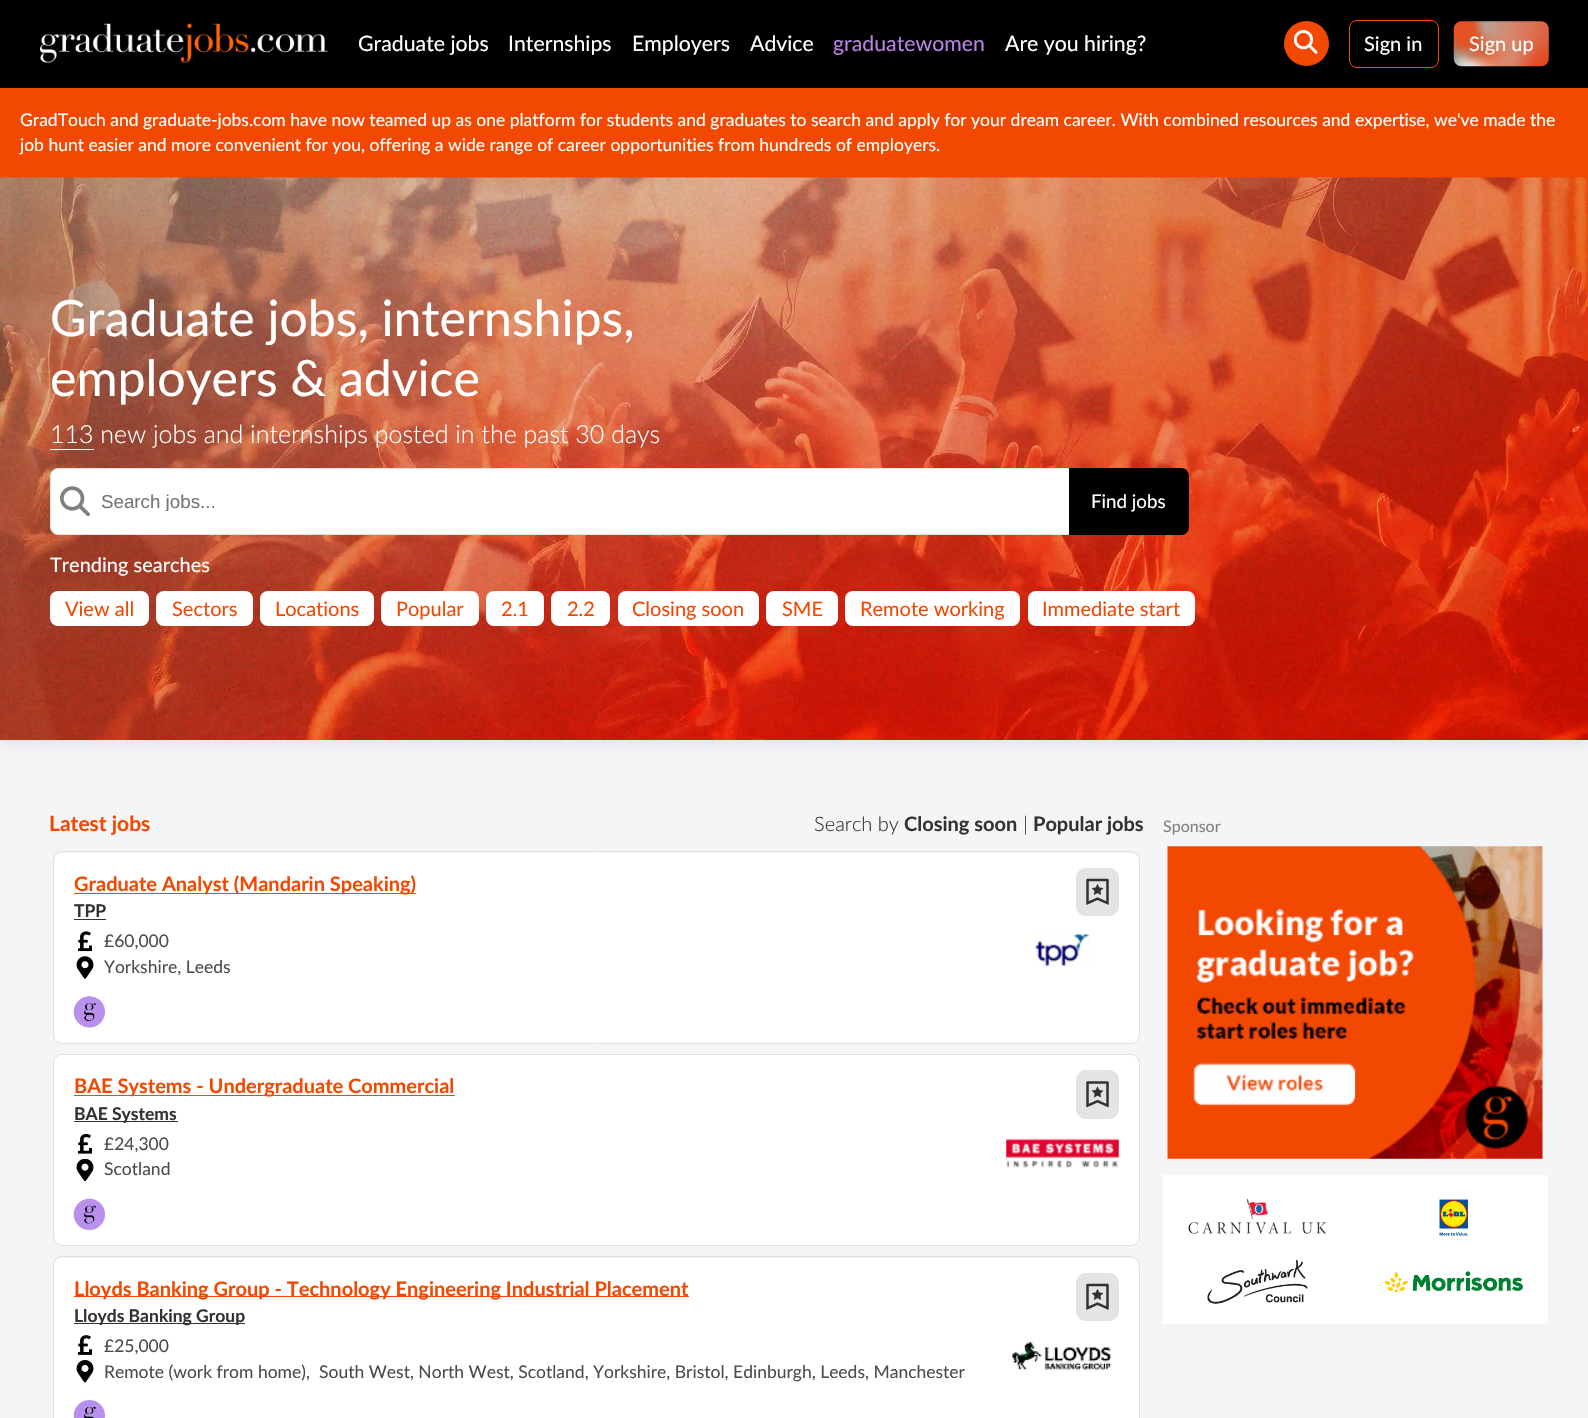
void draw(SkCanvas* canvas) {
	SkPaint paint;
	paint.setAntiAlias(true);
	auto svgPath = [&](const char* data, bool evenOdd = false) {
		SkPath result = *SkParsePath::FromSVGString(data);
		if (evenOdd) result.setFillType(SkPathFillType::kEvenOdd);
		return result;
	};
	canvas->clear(0xfff4f5f7);
	paint.setColor(0xff000000);
	canvas->drawRect(SkRect::MakeXYWH(0, 0, 1588, 88), paint);
	canvas->drawImageRect(SkImages::DeferredFromEncodedData(SkData::MakeFromFileName("img1.png")), SkRect::MakeXYWH(40, 23, 288, 40), SkSamplingOptions());
	SkFont f1(fontMgr->matchFamilyStyle("Lato", SkFontStyle::Normal()), 21.25);
	f1.setSubpixel(true);
	paint.setColor(0xffffffff);
	canvas->drawString("Graduate jobs", 358, 51, f1, paint);
	canvas->drawString("Internships", 508, 51, f1, paint);
	canvas->drawString("Employers", 632, 51, f1, paint);
	canvas->drawString("Advice", 750, 51, f1, paint);
	paint.setColor(0xffb883e4);
	canvas->drawString("graduatewomen", 833, 51, f1, paint);
	paint.setColor(0xffffffff);
	canvas->drawString("Are you hiring?", 1005, 51, f1, paint);
	paint.setColor(0xfff34801);
	canvas->drawCircle(1306.5, 43.5, 22.5, paint);
	canvas->drawImageRect(SkImages::DeferredFromEncodedData(SkData::MakeFromFileName("img2.png")), SkRect::MakeXYWH(1294, 30, 24, 24), SkSamplingOptions());
	paint.setStroke(true);
	paint.setStrokeWidth(1);
	canvas->drawRoundRect(SkRect::MakeXYWH(1349.5, 20.5, 89, 47), 7.5, 7.5, paint);
	SkFont f2(fontMgr->matchFamilyStyle("Lato", SkFontStyle::Normal()), 20);
	f2.setSubpixel(true);
	paint.setStroke(false);
	paint.setColor(0xffffffff);
	canvas->drawString("Sign in", 1364, 51, f2, paint);
	canvas->drawImageRect(SkImages::DeferredFromEncodedData(SkData::MakeFromFileName("img3.png")), SkRect::MakeXYWH(1453, 21, 96, 46), SkSamplingOptions());
	canvas->drawString("Sign up", 1469, 51, f2, paint);
	paint.setColor(0xfff34801);
	canvas->drawRect(SkRect::MakeXYWH(0, 88, 1588, 90), paint);
	SkFont f3(fontMgr->matchFamilyStyle("Lato", SkFontStyle::Normal()), 17.5);
	f3.setSubpixel(true);
	paint.setColor(0xffffffff);
	canvas->drawString("GradTouch and graduate-jobs.com have now teamed up as one platform for students and graduates to search and apply for your dream career. With combined resources and expertise, we've made the", 20, 126, f3, paint);
	canvas->drawString("job hunt easier and more convenient for you, offering a wide range of career opportunities from hundreds of employers.", 20, 151, f3, paint);
	paint.setColor(0x1a4e4f5c);
	paint.setMaskFilter(SkMaskFilter::MakeBlur(kNormal_SkBlurStyle, 5.5));
	canvas->drawRect(SkRect::MakeXYWH(0, 183, 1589, 562), paint);
	paint.setMaskFilter(nullptr);
	canvas->drawImageRect(SkImages::DeferredFromEncodedData(SkData::MakeFromFileName("img4.png")), SkRect::MakeXYWH(0, 177, 1588, 563), SkSamplingOptions());
	SkFont f4(fontMgr->matchFamilyStyle("Lato", SkFontStyle::Normal()), 50);
	f4.setSubpixel(true);
	paint.setColor(0xffffffff);
	canvas->drawString("Graduate jobs, internships,", 50, 336, f4, paint);
	canvas->drawString("employers & advice", 50, 396, f4, paint);
	SkFont f5(fontMgr->matchFamilyStyle("Lato", SkFontStyle(300, SkFontStyle::kNormal_Width, SkFontStyle::kUpright_Slant)), 25);
	f5.setSubpixel(true);
	canvas->drawString("113 new jobs and internships posted in the past 30 days", 50, 443, f5, paint);
	canvas->drawRect(SkRect::MakeXYWH(50, 449, 44, 1), paint);
	canvas->drawRoundRect(SkRect::MakeXYWH(50.5, 468.5, 1098, 66), 7.5, 7.5, paint);
	paint.setStroke(true);
	paint.setColor(0xffe0e0e0);
	canvas->drawRoundRect(SkRect::MakeXYWH(50.5, 468.5, 1098, 66), 7.5, 7.5, paint);
	canvas->drawImageRect(SkImages::DeferredFromEncodedData(SkData::MakeFromFileName("img5.png")), SkRect::MakeXYWH(60, 486, 30, 30), SkSamplingOptions());
	canvas->save();
	canvas->clipRect(SkRect::MakeXYWH(101, 490, 980, 21));
	SkFont f6(fontMgr->matchFamilyStyle("Liberation Sans", SkFontStyle::Normal()), 18.75);
	f6.setSubpixel(true);
	paint.setStroke(false);
	paint.setColor(0xff757575);
	canvas->drawString("Search jobs...", 101, 508, f6, paint);
	canvas->restore();
	paint.setColor(0xff000000);
	canvas->drawPath(svgPath("M1069 468H1181C1185.5 468 1189 471.5 1189 476V527C1189 531.5 1185.5 535 1181 535H1069Z"), paint);
	SkFont f7(fontMgr->matchFamilyStyle("Lato", SkFontStyle::Normal()), 18.75);
	f7.setSubpixel(true);
	paint.setColor(0xffffffff);
	canvas->drawString("Find jobs", 1091, 508, f7, paint);
	canvas->drawString("Trending searches", 50, 572, f2, paint);
	canvas->drawRoundRect(SkRect::MakeXYWH(50, 591, 99, 35), 8, 8, paint);
	paint.setColor(0xfff34801);
	canvas->drawString("View all", 65, 616, f2, paint);
	paint.setColor(0xffffffff);
	canvas->drawRoundRect(SkRect::MakeXYWH(156, 591, 97, 35), 8, 8, paint);
	paint.setColor(0xfff34801);
	canvas->drawString("Sectors", 172, 616, f2, paint);
	paint.setColor(0xffffffff);
	canvas->drawRoundRect(SkRect::MakeXYWH(260, 591, 114, 35), 8, 8, paint);
	paint.setColor(0xfff34801);
	canvas->drawString("Locations", 275, 616, f2, paint);
	paint.setColor(0xffffffff);
	canvas->drawRoundRect(SkRect::MakeXYWH(381, 591, 98, 35), 8, 8, paint);
	paint.setColor(0xfff34801);
	canvas->drawString("Popular", 396, 616, f2, paint);
	paint.setColor(0xffffffff);
	canvas->drawRoundRect(SkRect::MakeXYWH(486, 591, 58, 35), 8, 8, paint);
	paint.setColor(0xfff34801);
	canvas->drawString("2.1", 501, 616, f2, paint);
	paint.setColor(0xffffffff);
	canvas->drawRoundRect(SkRect::MakeXYWH(551, 591, 59, 35), 8, 8, paint);
	paint.setColor(0xfff34801);
	canvas->drawString("2.2", 567, 616, f2, paint);
	paint.setColor(0xffffffff);
	canvas->drawRoundRect(SkRect::MakeXYWH(618, 591, 141, 35), 8, 8, paint);
	paint.setColor(0xfff34801);
	canvas->drawString("Closing soon", 632, 616, f2, paint);
	paint.setColor(0xffffffff);
	canvas->drawRoundRect(SkRect::MakeXYWH(766, 591, 72, 35), 8, 8, paint);
	paint.setColor(0xfff34801);
	canvas->drawString("SME", 782, 616, f2, paint);
	paint.setColor(0xffffffff);
	canvas->drawRoundRect(SkRect::MakeXYWH(845, 591, 175, 35), 8, 8, paint);
	paint.setColor(0xfff34801);
	canvas->drawString("Remote working", 860, 616, f2, paint);
	paint.setColor(0xffffffff);
	canvas->drawRoundRect(SkRect::MakeXYWH(1028, 591, 167, 35), 8, 8, paint);
	paint.setColor(0xfff34801);
	canvas->drawString("Immediate start", 1042, 616, f2, paint);
	SkFont f8(fontMgr->matchFamilyStyle("Lato", SkFontStyle::Bold()), 21);
	f8.setSubpixel(true);
	canvas->drawString("Latest jobs", 49, 831, f8, paint);
	SkFont f9(fontMgr->matchFamilyStyle("Lato", SkFontStyle(300, SkFontStyle::kNormal_Width, SkFontStyle::kUpright_Slant)), 20);
	f9.setSubpixel(true);
	paint.setColor(0xff323232);
	canvas->drawString("Search by", 814, 831, f9, paint);
	SkFont f10(fontMgr->matchFamilyStyle("Lato", SkFontStyle::Bold()), 20);
	f10.setSubpixel(true);
	canvas->drawString("Closing soon", 904, 831, f10, paint);
	canvas->drawString("|", 1023, 831, f9, paint);
	canvas->drawString("Popular jobs", 1033, 831, f10, paint);
	paint.setColor(0xffffffff);
	canvas->drawRoundRect(SkRect::MakeXYWH(54, 853, 1085, 190), 8, 8, paint);
	paint.setColor(0xfff34801);
	canvas->drawRect(SkRect::MakeXYWH(74, 893, 342, 1), paint);
	paint.setColor(0xff323232);
	canvas->drawRect(SkRect::MakeXYWH(74, 919, 32, 1), paint);
	paint.setColor(0xffe4e4e4);
	canvas->drawRoundRect(SkRect::MakeXYWH(1076.5, 868.5, 42, 47), 9.5, 9.5, paint);
	paint.setStroke(true);
	paint.setColor(0xffe0e0e0);
	canvas->drawRoundRect(SkRect::MakeXYWH(1076.5, 868.5, 42, 47), 9.5, 9.5, paint);
	canvas->drawImageRect(SkImages::DeferredFromEncodedData(SkData::MakeFromFileName("img9.png")), SkRect::MakeXYWH(1035, 933, 55, 34), SkSamplingOptions());
	canvas->drawImageRect(SkImages::DeferredFromEncodedData(SkData::MakeFromFileName("img10.png")), SkRect::MakeXYWH(73, 996, 32, 32), SkSamplingOptions());
	canvas->drawRoundRect(SkRect::MakeXYWH(53.5, 851.5, 1086, 192), 8.5, 8.5, paint);
	paint.setStroke(false);
	paint.setColor(0xfff34801);
	canvas->drawString("Graduate Analyst (Mandarin Speaking)", 74, 891, f10, paint);
	SkFont f11(fontMgr->matchFamilyStyle("Lato", SkFontStyle::Bold()), 17.5);
	f11.setSubpixel(true);
	paint.setColor(0xff323232);
	canvas->drawString("TPP", 74, 917, f11, paint);
	canvas->drawImageRect(SkImages::DeferredFromEncodedData(SkData::MakeFromFileName("img6.png")), SkRect::MakeXYWH(77, 931, 16, 21), SkSamplingOptions());
	paint.setColor(0xff4c4c4c);
	canvas->drawString("£60,000", 104, 947, f3, paint);
	canvas->drawImageRect(SkImages::DeferredFromEncodedData(SkData::MakeFromFileName("img7.png")), SkRect::MakeXYWH(76, 956, 18, 23), SkSamplingOptions());
	canvas->drawString("Yorkshire, Leeds", 104, 973, f3, paint);
	canvas->drawImageRect(SkImages::DeferredFromEncodedData(SkData::MakeFromFileName("img8.png")), SkRect::MakeXYWH(1086, 878, 23, 27), SkSamplingOptions());
	paint.setColor(0xffffffff);
	canvas->drawRoundRect(SkRect::MakeXYWH(54, 1055, 1085, 190), 8, 8, paint);
	paint.setColor(0xfff34801);
	canvas->drawRect(SkRect::MakeXYWH(74, 1095, 381, 1), paint);
	paint.setColor(0xff323232);
	canvas->drawRect(SkRect::MakeXYWH(74, 1121, 104, 1), paint);
	paint.setColor(0xffe4e4e4);
	canvas->drawRoundRect(SkRect::MakeXYWH(1076.5, 1070.5, 42, 48), 9.5, 9.5, paint);
	paint.setStroke(true);
	paint.setColor(0xffe0e0e0);
	canvas->drawRoundRect(SkRect::MakeXYWH(1076.5, 1070.5, 42, 48), 9.5, 9.5, paint);
	canvas->drawImageRect(SkImages::DeferredFromEncodedData(SkData::MakeFromFileName("img14.png")), SkRect::MakeXYWH(1006, 1138, 113, 30), SkSamplingOptions());
	canvas->drawImageRect(SkImages::DeferredFromEncodedData(SkData::MakeFromFileName("img15.png")), SkRect::MakeXYWH(73, 1198, 32, 32), SkSamplingOptions());
	canvas->drawRoundRect(SkRect::MakeXYWH(53.5, 1054.5, 1086, 191), 8.5, 8.5, paint);
	paint.setStroke(false);
	paint.setColor(0xfff34801);
	canvas->drawString("BAE Systems - Undergraduate Commercial", 74, 1093, f10, paint);
	paint.setColor(0xff323232);
	canvas->drawString("BAE Systems", 74, 1120, f11, paint);
	canvas->drawImageRect(SkImages::DeferredFromEncodedData(SkData::MakeFromFileName("img11.png")), SkRect::MakeXYWH(77, 1133, 16, 21), SkSamplingOptions());
	paint.setColor(0xff4c4c4c);
	canvas->drawString("£24,300", 104, 1150, f3, paint);
	canvas->drawImageRect(SkImages::DeferredFromEncodedData(SkData::MakeFromFileName("img12.png")), SkRect::MakeXYWH(76, 1159, 18, 22), SkSamplingOptions());
	canvas->drawString("Scotland", 104, 1175, f3, paint);
	canvas->drawImageRect(SkImages::DeferredFromEncodedData(SkData::MakeFromFileName("img13.png")), SkRect::MakeXYWH(1086, 1081, 23, 27), SkSamplingOptions());
	paint.setColor(0xffffffff);
	canvas->drawRoundRect(SkRect::MakeXYWH(54, 1258, 1085, 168), 8, 8, paint);
	paint.setColor(0xfff34801);
	canvas->drawRect(SkRect::MakeXYWH(74, 1296, 615, 1), paint);
	paint.setColor(0xff323232);
	canvas->drawRect(SkRect::MakeXYWH(74, 1323, 171, 1), paint);
	paint.setColor(0xffe4e4e4);
	canvas->drawRoundRect(SkRect::MakeXYWH(1076.5, 1273.5, 42, 47), 9.5, 9.5, paint);
	paint.setStroke(true);
	paint.setColor(0xffe0e0e0);
	canvas->drawRoundRect(SkRect::MakeXYWH(1076.5, 1273.5, 42, 47), 9.5, 9.5, paint);
	canvas->drawImageRect(SkImages::DeferredFromEncodedData(SkData::MakeFromFileName("img18.png")), SkRect::MakeXYWH(1012, 1341, 100, 30), SkSamplingOptions());
	canvas->drawImageRect(SkImages::DeferredFromEncodedData(SkData::MakeFromFileName("img19.png")), SkRect::MakeXYWH(73, 1400, 32, 18), SkSamplingOptions());
	canvas->drawRoundRect(SkRect::MakeXYWH(53.5, 1256.5, 1086, 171), 8.5, 8.5, paint);
	paint.setStroke(false);
	paint.setColor(0xfff34801);
	canvas->drawString("Lloyds Banking Group - Technology Engineering Industrial Placement", 74, 1296, f10, paint);
	paint.setColor(0xff323232);
	canvas->drawString("Lloyds Banking Group", 74, 1322, f11, paint);
	canvas->drawImageRect(SkImages::DeferredFromEncodedData(SkData::MakeFromFileName("img16.png")), SkRect::MakeXYWH(77, 1335, 16, 20), SkSamplingOptions());
	paint.setColor(0xff4c4c4c);
	canvas->drawString("£25,000", 104, 1352, f3, paint);
	canvas->drawImageRect(SkImages::DeferredFromEncodedData(SkData::MakeFromFileName("img17.png")), SkRect::MakeXYWH(76, 1360, 18, 23), SkSamplingOptions());
	canvas->drawString("Remote (work from home),", 104, 1378, f3, paint);
	canvas->drawString("South West, North West, Scotland, Yorkshire, Bristol, Edinburgh, Leeds, Manchester", 319, 1378, f3, paint);
	canvas->drawImageRect(SkImages::DeferredFromEncodedData(SkData::MakeFromFileName("img8.png")), SkRect::MakeXYWH(1086, 1283, 23, 27), SkSamplingOptions());
	SkFont f12(fontMgr->matchFamilyStyle("Lato", SkFontStyle::Normal()), 16);
	f12.setSubpixel(true);
	paint.setColor(0xff808080);
	canvas->drawString("Sponsor", 1163, 832, f12, paint);
	canvas->drawImageRect(SkImages::DeferredFromEncodedData(SkData::MakeFromFileName("img20.png")), SkRect::MakeXYWH(1167, 846, 376, 313), SkSamplingOptions());
	paint.setColor(0xffffffff);
	canvas->drawRect(SkRect::MakeXYWH(1163, 1175, 385, 149), paint);
	canvas->drawImageRect(SkImages::DeferredFromEncodedData(SkData::MakeFromFileName("img21.png")), SkRect::MakeXYWH(1188, 1198, 139, 37), SkSamplingOptions());
	canvas->drawImageRect(SkImages::DeferredFromEncodedData(SkData::MakeFromFileName("img22.png")), SkRect::MakeXYWH(1439, 1199, 30, 37), SkSamplingOptions());
	canvas->drawImageRect(SkImages::DeferredFromEncodedData(SkData::MakeFromFileName("img23.png")), SkRect::MakeXYWH(1207, 1260, 101, 44), SkSamplingOptions());
	canvas->drawImageRect(SkImages::DeferredFromEncodedData(SkData::MakeFromFileName("img24.png")), SkRect::MakeXYWH(1384, 1271, 139, 22), SkSamplingOptions());
}
